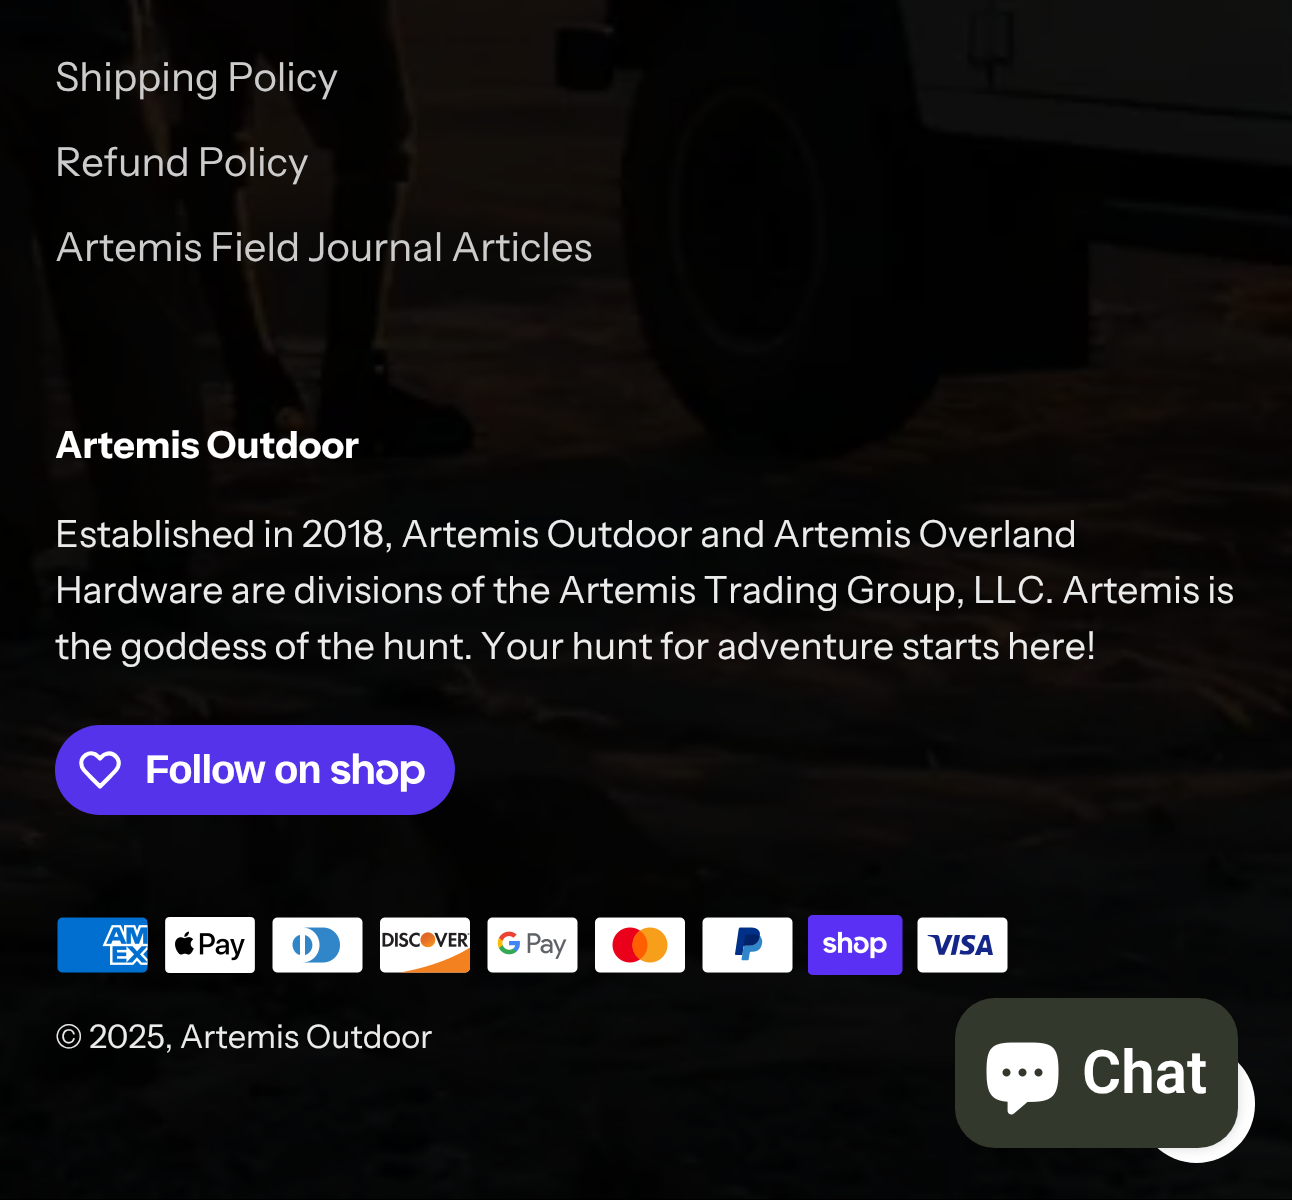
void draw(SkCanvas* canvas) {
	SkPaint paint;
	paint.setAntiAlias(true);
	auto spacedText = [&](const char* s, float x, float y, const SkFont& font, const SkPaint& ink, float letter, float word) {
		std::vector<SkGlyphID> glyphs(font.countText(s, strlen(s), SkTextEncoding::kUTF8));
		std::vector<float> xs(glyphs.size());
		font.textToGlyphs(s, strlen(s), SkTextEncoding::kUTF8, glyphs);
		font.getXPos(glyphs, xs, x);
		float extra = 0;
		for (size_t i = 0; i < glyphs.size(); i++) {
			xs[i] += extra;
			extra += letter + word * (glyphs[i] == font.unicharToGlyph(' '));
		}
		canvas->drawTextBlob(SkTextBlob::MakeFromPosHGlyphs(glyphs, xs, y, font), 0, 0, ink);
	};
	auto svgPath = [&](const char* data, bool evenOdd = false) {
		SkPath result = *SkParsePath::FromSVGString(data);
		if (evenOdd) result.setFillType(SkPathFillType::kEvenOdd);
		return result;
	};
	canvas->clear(0xff000000);
	canvas->drawImageRect(SkImages::DeferredFromEncodedData(SkData::MakeFromFileName("img1.png")), SkRect::MakeXYWH(0, 0, 1292, 1199), SkSamplingOptions());
	SkFont f1(fontMgr->matchFamilyStyle("Instrument Sans", SkFontStyle::Normal()), 40);
	f1.setSubpixel(true);
	paint.setColor(0xffcccccc);
	canvas->drawString("Shipping Policy", 55, 91, f1, paint);
	canvas->drawString("Refund Policy", 55, 176, f1, paint);
	canvas->drawString("Artemis Field Journal Articles", 55, 261, f1, paint);
	SkFont f2(fontMgr->matchFamilyStyle("Instrument Sans", SkFontStyle::Bold()), 37.5);
	f2.setSubpixel(true);
	paint.setColor(0xffffffff);
	canvas->drawString("Artemis Outdoor", 55, 458, f2, paint);
	SkFont f3(fontMgr->matchFamilyStyle("Instrument Sans", SkFontStyle::Normal()), 37.5);
	f3.setSubpixel(true);
	paint.setColor(0xffebebeb);
	canvas->drawString("Established in 2018, Artemis Outdoor and Artemis Overland", 55, 547, f3, paint);
	canvas->drawString("Hardware are divisions of the Artemis Trading Group, LLC. Artemis is", 55, 603, f3, paint);
	canvas->drawString("the goddess of the hunt. Your hunt for adventure starts here!", 55, 659, f3, paint);
	paint.setColor(0xff5433eb);
	canvas->drawRoundRect(SkRect::MakeXYWH(55, 725, 400, 90), 45, 45, paint);
	paint.setStroke(true);
	paint.setStrokeWidth(4.2);
	paint.setStrokeJoin(SkPaint::kRound_Join);
	paint.setColor(0xffffffff);
	canvas->drawPath(svgPath("M98 756.5L100 758.5C102 756.5 103.5 754.5 106 754C114 751.5 121 759.5 118 767C116.5 770.5 113 773 110.5 776L100 786.5L89.5 776C87 773 83.5 770.5 82 767C78 757 90.5 748.5 98 756.5Z"), paint);
	SkFont f4(fontMgr->matchFamilyStyle("Liberation Sans", SkFontStyle::Bold()), 40);
	f4.setSubpixel(true);
	paint.setStroke(false);
	spacedText("Follow on", 145, 783, f4, paint, -1.25, 0);
	canvas->drawImageRect(SkImages::DeferredFromEncodedData(SkData::MakeFromFileName("img2.png")), SkRect::MakeXYWH(331, 753, 94, 39), SkSamplingOptions());
	canvas->drawImageRect(SkImages::DeferredFromEncodedData(SkData::MakeFromFileName("img3.png")), SkRect::MakeXYWH(57, 917, 91, 56), SkSamplingOptions());
	canvas->drawImageRect(SkImages::DeferredFromEncodedData(SkData::MakeFromFileName("img4.png")), SkRect::MakeXYWH(163, 915, 92, 60), SkSamplingOptions());
	canvas->drawImageRect(SkImages::DeferredFromEncodedData(SkData::MakeFromFileName("img5.png")), SkRect::MakeXYWH(272, 917, 91, 56), SkSamplingOptions());
	canvas->drawImageRect(SkImages::DeferredFromEncodedData(SkData::MakeFromFileName("img6.png")), SkRect::MakeXYWH(380, 917, 91, 56), SkSamplingOptions());
	canvas->drawImageRect(SkImages::DeferredFromEncodedData(SkData::MakeFromFileName("img7.png")), SkRect::MakeXYWH(487, 917, 91, 56), SkSamplingOptions());
	canvas->drawImageRect(SkImages::DeferredFromEncodedData(SkData::MakeFromFileName("img8.png")), SkRect::MakeXYWH(595, 917, 90, 56), SkSamplingOptions());
	canvas->drawImageRect(SkImages::DeferredFromEncodedData(SkData::MakeFromFileName("img9.png")), SkRect::MakeXYWH(702, 917, 91, 56), SkSamplingOptions());
	canvas->drawImageRect(SkImages::DeferredFromEncodedData(SkData::MakeFromFileName("img10.png")), SkRect::MakeXYWH(808, 915, 95, 60), SkSamplingOptions());
	canvas->drawImageRect(SkImages::DeferredFromEncodedData(SkData::MakeFromFileName("img11.png")), SkRect::MakeXYWH(917, 917, 91, 56), SkSamplingOptions());
	SkFont f5(fontMgr->matchFamilyStyle("Instrument Sans", SkFontStyle::Normal()), 32.5);
	f5.setSubpixel(true);
	paint.setColor(0xffebebeb);
	canvas->drawString("© 2025, Artemis Outdoor", 55, 1048, f5, paint);
	paint.setColor(0xffffffff);
	canvas->drawRoundRect(SkRect::MakeXYWH(1138, 1045, 117, 118), 58.5, 58.5, paint);
	paint.setColor(0x26000000);
	paint.setMaskFilter(SkMaskFilter::MakeBlur(kNormal_SkBlurStyle, 6));
	canvas->drawRoundRect(SkRect::MakeXYWH(955, 998, 283, 150), 40, 40, paint);
	paint.setMaskFilter(nullptr);
	paint.setColor(0xff33382c);
	canvas->drawRoundRect(SkRect::MakeXYWH(955, 998, 283, 150), 40, 40, paint);
	canvas->drawImageRect(SkImages::DeferredFromEncodedData(SkData::MakeFromFileName("img12.png")), SkRect::MakeXYWH(986, 1042, 73, 73), SkSamplingOptions());
	SkFont f6(fontMgr->matchFamilyStyle("Roboto", SkFontStyle(600, SkFontStyle::kNormal_Width, SkFontStyle::kUpright_Slant)), 60);
	f6.setSubpixel(true);
	paint.setColor(0xffffffff);
	canvas->drawString("Chat", 1082, 1093, f6, paint);
}
